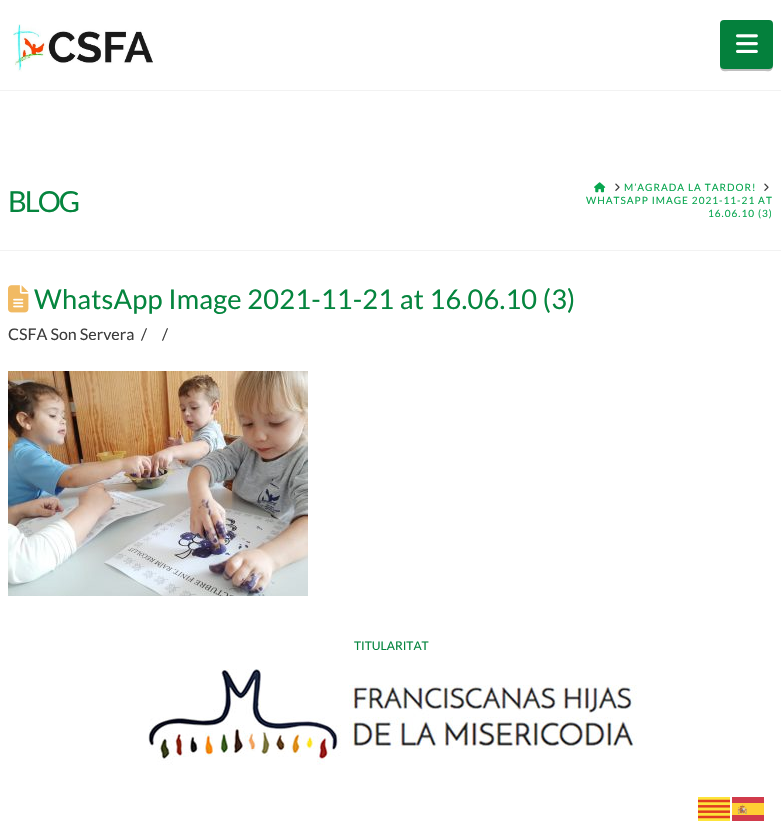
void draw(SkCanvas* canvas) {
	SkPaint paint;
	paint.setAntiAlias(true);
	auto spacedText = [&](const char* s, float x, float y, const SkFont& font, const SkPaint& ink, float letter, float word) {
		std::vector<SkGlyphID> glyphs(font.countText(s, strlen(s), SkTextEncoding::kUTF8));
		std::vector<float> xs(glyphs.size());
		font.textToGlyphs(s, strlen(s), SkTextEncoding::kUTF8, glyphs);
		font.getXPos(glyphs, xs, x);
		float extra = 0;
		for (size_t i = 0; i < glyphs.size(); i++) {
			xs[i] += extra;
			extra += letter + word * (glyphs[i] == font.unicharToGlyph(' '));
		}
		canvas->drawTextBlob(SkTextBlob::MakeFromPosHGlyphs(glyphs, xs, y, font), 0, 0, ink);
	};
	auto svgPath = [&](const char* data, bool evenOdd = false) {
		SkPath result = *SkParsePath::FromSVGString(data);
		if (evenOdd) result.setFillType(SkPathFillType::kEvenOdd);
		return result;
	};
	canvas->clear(0xffffffff);
	canvas->drawImageRect(SkImages::DeferredFromEncodedData(SkData::MakeFromFileName("img1.png")), SkRect::MakeXYWH(13, 24, 140, 48), SkSamplingOptions());
	paint.setColor(0xffbfbfbf);
	canvas->drawPath(svgPath("M720 65C720 73 725 71 732 71H762C768 71 773 73 773 65C773 67 771 69 769 69H724C722 69 720 67 720 65Z"), paint);
	paint.setColor(0xff04803c);
	canvas->drawRoundRect(SkRect::MakeXYWH(720, 20, 53, 49), 4, 4, paint);
	canvas->drawImageRect(SkImages::DeferredFromEncodedData(SkData::MakeFromFileName("img2.png")), SkRect::MakeXYWH(736, 34, 22, 19), SkSamplingOptions());
	paint.setColor(0xfff2f2f2);
	canvas->drawRect(SkRect::MakeXYWH(0, 90, 781, 1), paint);
	canvas->drawRect(SkRect::MakeXYWH(0, 250, 781, 1), paint);
	SkFont f1(fontMgr->matchFamilyStyle("Lato", SkFontStyle::Normal()), 29);
	f1.setSubpixel(true);
	paint.setColor(0xff05853e);
	spacedText("BLOG", 8, 212, f1, paint, -2, 0);
	canvas->drawImageRect(SkImages::DeferredFromEncodedData(SkData::MakeFromFileName("img3.png")), SkRect::MakeXYWH(594, 182, 12, 11), SkSamplingOptions());
	canvas->drawImageRect(SkImages::DeferredFromEncodedData(SkData::MakeFromFileName("img4.png")), SkRect::MakeXYWH(615, 183, 5, 8), SkSamplingOptions());
	SkFont f2(fontMgr->matchFamilyStyle("Lato", SkFontStyle::Normal()), 10);
	f2.setSubpixel(true);
	paint.setColor(0xff08a64f);
	spacedText("M’AGRADA LA TARDOR!", 624, 191, f2, paint, 1, 0);
	canvas->drawImageRect(SkImages::DeferredFromEncodedData(SkData::MakeFromFileName("img4.png")), SkRect::MakeXYWH(764, 183, 5, 8), SkSamplingOptions());
	spacedText("WHATSAPP IMAGE 2021-11-21 AT", 586, 204, f2, paint, 1, 0);
	spacedText("16.06.10 (3)", 708, 217, f2, paint, 1, 0);
	canvas->drawImageRect(SkImages::DeferredFromEncodedData(SkData::MakeFromFileName("img5.png")), SkRect::MakeXYWH(8, 285, 21, 28), SkSamplingOptions());
	SkFont f3(fontMgr->matchFamilyStyle("Lato", SkFontStyle::Normal()), 27.2);
	f3.setSubpixel(true);
	paint.setColor(0xff05853e);
	spacedText("WhatsApp Image 2021-11-21 at 16.06.10 (3)", 34, 309, f3, paint, 0.2, 0);
	SkFont f4(fontMgr->matchFamilyStyle("Lato", SkFontStyle::Normal()), 16);
	f4.setSubpixel(true);
	paint.setColor(0xff3d3d3d);
	canvas->drawString("CSFA Son Servera", 8, 340, f4, paint);
	canvas->drawString("/", 141, 340, f4, paint);
	canvas->drawString("/", 162, 340, f4, paint);
	canvas->drawImageRect(SkImages::DeferredFromEncodedData(SkData::MakeFromFileName("img6.png")), SkRect::MakeXYWH(8, 371, 300, 225), SkSamplingOptions());
	SkFont f5(fontMgr->matchFamilyStyle("Lato", SkFontStyle::Normal()), 12);
	f5.setSubpixel(true);
	paint.setColor(0xff05853e);
	canvas->drawString("TITULARITAT", 354, 650, f5, paint);
	canvas->drawImageRect(SkImages::DeferredFromEncodedData(SkData::MakeFromFileName("img7.png")), SkRect::MakeXYWH(148, 669, 489, 96), SkSamplingOptions());
	canvas->drawImageRect(SkImages::DeferredFromEncodedData(SkData::MakeFromFileName("img8.png")), SkRect::MakeXYWH(698, 797, 32, 24), SkSamplingOptions());
	canvas->drawImageRect(SkImages::DeferredFromEncodedData(SkData::MakeFromFileName("img9.png")), SkRect::MakeXYWH(732, 797, 32, 24), SkSamplingOptions());
}
